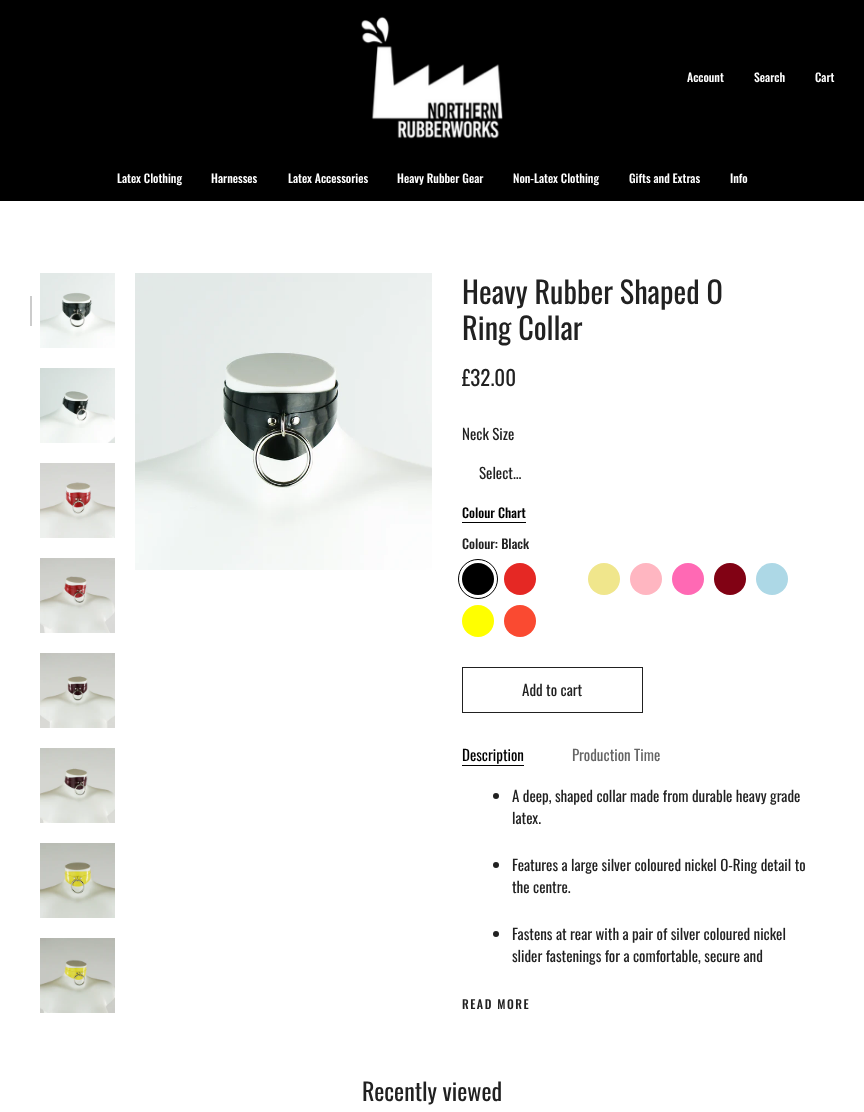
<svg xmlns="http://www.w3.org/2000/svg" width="864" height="1112">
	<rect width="100%" height="100%" fill="#FFFFFF" />
	<rect x="0" y="0" width="864" height="201" fill="#000000" />
	<image x="361" y="16" width="142" height="123" href="assets/img1.png" />
	<g font-family="Oswald" font-size="11.75" font-weight="500" fill="#FFFFFF">
		<text x="687" y="82">Account</text>
		<text x="754" y="82">Search</text>
		<text x="815" y="82">Cart</text>
		<text x="117" y="183">Latex Clothing</text>
		<text x="211" y="183">Harnesses</text>
		<text x="288" y="183">Latex Accessories</text>
		<text x="397" y="183">Heavy Rubber Gear</text>
		<text x="513" y="183">Non-Latex Clothing</text>
		<text x="629" y="183">Gifts and Extras</text>
		<text x="730" y="183">Info</text>
	</g>
	<rect x="30" y="296" width="2" height="30" fill="#CCCCCC" />
	<image x="40" y="273" width="75" height="75" href="assets/img2.png" />
	<image x="40" y="368" width="75" height="75" href="assets/img3.png" />
	<image x="40" y="463" width="75" height="75" href="assets/img4.png" />
	<image x="40" y="558" width="75" height="75" href="assets/img5.png" />
	<image x="40" y="653" width="75" height="75" href="assets/img6.png" />
	<image x="40" y="748" width="75" height="75" href="assets/img7.png" />
	<image x="40" y="843" width="75" height="75" href="assets/img8.png" />
	<image x="40" y="938" width="75" height="75" href="assets/img9.png" />
	<image x="135" y="273" width="297" height="297" href="assets/img10.png" />
	<g font-family="Oswald" font-size="30.25" fill="#212121">
		<text x="462" y="304">Heavy Rubber Shaped O</text>
		<text x="462" y="340">Ring Collar</text>
	</g>
	<text x="462" y="386" font-family="Oswald" font-size="21" fill="#212121">£32.00</text>
	<g font-family="Oswald" font-size="15" fill="#212121">
		<text x="462" y="440">Neck Size</text>
		<text x="479" y="479">Select...</text>
	</g>
	<rect x="462" y="522" width="64" height="1" fill="#000000" />
	<text x="462" y="518" font-family="Oswald" font-size="13" font-weight="500" fill="#000000">Colour Chart</text>
	<text x="462" y="549" font-family="Oswald" font-size="13" font-weight="500" fill="#212121">Colour: Black</text>
	<circle cx="478" cy="579" r="16" fill="#000000" />
	<circle cx="478" cy="579" r="19.5" fill="none" stroke="#000000" />
	<circle cx="520" cy="579" r="16" fill="#E52824" />
	<circle cx="604" cy="579" r="16" fill="#F0E68C" />
	<circle cx="646" cy="579" r="16" fill="#FFB6C1" />
	<circle cx="688" cy="579" r="16" fill="#FF69B4" />
	<circle cx="730" cy="579" r="16" fill="#810214" />
	<circle cx="772" cy="579" r="16" fill="#ADD8E6" />
	<circle cx="478" cy="621" r="16" fill="#FFFF00" />
	<circle cx="520" cy="621" r="16" fill="#FA4A31" />
	<rect x="462.5" y="667.5" width="180" height="45" fill="none" stroke="#212121" />
	<text x="522" y="696" font-family="Oswald" font-size="15" fill="#212121">Add to cart</text>
	<rect x="462" y="765" width="62" height="1" fill="#000000" />
	<text x="462" y="761" font-family="Oswald" font-size="15" fill="#000000">Description</text>
	<text x="572" y="761" font-family="Oswald" font-size="15" fill="#646464">Production Time</text>
	<circle cx="496" cy="796" r="3" fill="#212121" />
	<g font-family="Oswald" font-size="15" fill="#212121">
		<text x="512" y="802">A deep, shaped collar made from durable heavy grade</text>
		<text x="512" y="824">latex.</text>
	</g>
	<circle cx="496" cy="865" r="3" fill="#212121" />
	<g font-family="Oswald" font-size="15" fill="#212121">
		<text x="512" y="871">Features a large silver coloured nickel O-Ring detail to</text>
		<text x="512" y="893">the centre.</text>
	</g>
	<circle cx="496" cy="934" r="3" fill="#212121" />
	<g font-family="Oswald" font-size="15" fill="#212121">
		<text x="512" y="940">Fastens at rear with a pair of silver coloured nickel</text>
		<text x="512" y="962">slider fastenings for a comfortable, secure and</text>
	</g>
	<text x="462" y="1009" font-family="Oswald" font-size="12" font-weight="500" letter-spacing="1.5" fill="#212121">READ MORE</text>
	<text x="362" y="1101" font-family="Oswald" font-size="24" fill="#212121">Recently viewed</text>
</svg>
